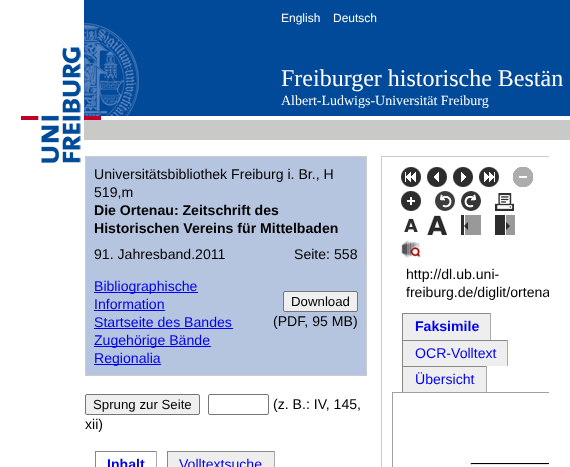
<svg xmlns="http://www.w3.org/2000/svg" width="570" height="467">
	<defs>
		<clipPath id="clip1"><rect x="392" y="167" width="157" height="136" /></clipPath>
		<clipPath id="clip2"><rect x="85" y="156" width="464" height="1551" /></clipPath>
	</defs>
	<rect width="100%" height="100%" fill="#FFFFFF" />
	<image x="84" y="0" width="486" height="140" href="assets/img1.png" />
	<image x="21" y="47" width="60" height="116" href="assets/img2.png" />
	<image x="84" y="23" width="55" height="97" href="assets/img3.png" />
	<g font-family="Liberation Sans" font-size="12" fill="#FFFFFF">
		<text x="281" y="22">English</text>
		<text x="333" y="22">Deutsch</text>
	</g>
	<text x="281" y="86" font-family="Liberation Serif" font-size="24" fill="#FFFFFF">Freiburger historische Bestän</text>
	<text x="281" y="105" font-family="Liberation Serif" font-size="14" fill="#FFFFFF">Albert-Ludwigs-Universität Freiburg</text>
	<rect x="85.5" y="156.5" width="281" height="219" fill="#B6C5DF" stroke="#CCCCCC" />
	<g font-family="Liberation Sans" font-size="14.1" fill="#000000">
		<text x="94" y="179">Universitätsbibliothek Freiburg i. Br., H</text>
		<text x="94" y="197">519,m</text>
	</g>
	<g font-family="Liberation Sans" font-size="14.1" font-weight="700" fill="#000000">
		<text x="94" y="215">Die Ortenau: Zeitschrift des</text>
		<text x="94" y="233">Historischen Vereins für Mittelbaden</text>
	</g>
	<g font-family="Liberation Sans" font-size="14.1" fill="#000000">
		<text x="94" y="259">91. Jahresband.2011</text>
		<text x="294" y="259">Seite: 558</text>
	</g>
	<rect x="94" y="292" width="104" height="1" fill="#0000EE" />
	<g font-family="Liberation Sans" font-size="14.1" fill="#0000EE">
		<text x="94" y="291">Bibliographische</text>
		<text x="94" y="309">Information</text>
	</g>
	<rect x="94" y="310" width="71" height="1" fill="#0000EE" />
	<rect x="283.5" y="291.5" width="74" height="20" rx="1.5" fill="#EFEFEF" stroke="#767676" />
	<text x="291" y="306" font-family="Liberation Sans" font-size="13.25" fill="#000000">Download</text>
	<text x="273" y="326" font-family="Liberation Sans" font-size="14.1" fill="#000000">(PDF, 95 MB)</text>
	<text x="94" y="327" font-family="Liberation Sans" font-size="14.1" fill="#0000EE">Startseite des Bandes</text>
	<rect x="94" y="328" width="139" height="1" fill="#0000EE" />
	<rect x="94" y="346" width="117" height="1" fill="#0000EE" />
	<text x="94" y="345" font-family="Liberation Sans" font-size="14.1" fill="#0000EE">Zugehörige Bände</text>
	<rect x="94" y="364" width="67" height="1" fill="#0000EE" />
	<text x="94" y="363" font-family="Liberation Sans" font-size="14.1" fill="#0000EE">Regionalia</text>
	<rect x="85.5" y="394.5" width="114" height="20" rx="1.5" fill="#EFEFEF" stroke="#767676" />
	<text x="93" y="409" font-family="Liberation Sans" font-size="13.25" fill="#000000">Sprung zur Seite</text>
	<rect x="208.5" y="394.5" width="60" height="20" rx="1.5" fill="none" stroke="#767676" />
	<g font-family="Liberation Sans" font-size="14.1" fill="#000000">
		<text x="273" y="409">(z. B.: IV, 145,</text>
		<text x="85" y="429">xii)</text>
	</g>
	<rect x="95" y="451" width="62" height="1" fill="#888888" />
	<rect x="156" y="451" width="1" height="16" fill="#AAAAAA" />
	<rect x="95" y="451" width="1" height="16" fill="#888888" />
	<text x="107" y="469" font-family="Liberation Sans" font-size="14.1" font-weight="700" fill="#0000EE">Inhalt</text>
	<rect x="168" y="452" width="106" height="15" fill="#EEEEEE" />
	<rect x="167" y="451" width="108" height="1" fill="#888888" />
	<rect x="274" y="451" width="1" height="16" fill="#AAAAAA" />
	<rect x="167" y="451" width="1" height="16" fill="#888888" />
	<text x="179" y="469" font-family="Liberation Sans" font-size="14.1" fill="#0000EE">Volltextsuche</text>
	<rect x="381" y="156" width="168" height="1" fill="#CCCCCC" />
	<rect x="381" y="156" width="1" height="311" fill="#CCCCCC" />
	<image x="401" y="167" width="20" height="20" href="assets/img4.png" />
	<image x="427" y="167" width="20" height="20" href="assets/img5.png" />
	<image x="453" y="167" width="20" height="20" href="assets/img6.png" />
	<image x="479" y="167" width="20" height="20" href="assets/img7.png" />
	<image x="513" y="167" width="20" height="20" href="assets/img8.png" />
	<image x="401" y="191" width="20" height="20" href="assets/img9.png" />
	<image x="435" y="191" width="20" height="20" href="assets/img10.png" />
	<image x="461" y="191" width="20" height="20" href="assets/img11.png" />
	<image x="495" y="193" width="19" height="18" href="assets/img12.png" />
	<image x="404" y="218" width="14" height="14" href="assets/img13.png" />
	<image x="427" y="215" width="20" height="20" href="assets/img14.png" />
	<image x="461" y="215" width="20" height="20" href="assets/img15.png" />
	<image x="495" y="215" width="20" height="20" href="assets/img16.png" />
	<image x="401" y="240" width="20" height="18" href="assets/img17.png" />
	<text x="406" y="279" font-family="Liberation Sans" font-size="14.1" fill="#000000">http://dl.ub.uni-</text>
	<g clip-path="url(#clip1)">
		<text x="406" y="297" font-family="Liberation Sans" font-size="14.1" fill="#000000">freiburg.de/diglit/ortena</text>
	</g>
	<rect x="403" y="314" width="87" height="26" fill="#EEEEEE" />
	<rect x="402" y="313" width="89" height="1" fill="#888888" />
	<rect x="490" y="313" width="1" height="27" fill="#AAAAAA" />
	<rect x="402" y="313" width="1" height="27" fill="#888888" />
	<text x="415" y="331" font-family="Liberation Sans" font-size="14.1" font-weight="700" fill="#0000EE">Faksimile</text>
	<rect x="403" y="341" width="104" height="25" fill="#EEEEEE" />
	<rect x="402" y="340" width="106" height="1" fill="#888888" />
	<rect x="507" y="340" width="1" height="26" fill="#AAAAAA" />
	<rect x="402" y="340" width="1" height="26" fill="#888888" />
	<text x="415" y="358" font-family="Liberation Sans" font-size="14.1" fill="#0000EE">OCR-Volltext</text>
	<rect x="403" y="367" width="83" height="25" fill="#EEEEEE" />
	<rect x="402" y="366" width="85" height="1" fill="#888888" />
	<rect x="486" y="366" width="1" height="26" fill="#AAAAAA" />
	<rect x="402" y="366" width="1" height="26" fill="#888888" />
	<text x="415" y="384" font-family="Liberation Sans" font-size="14.1" fill="#0000EE">Übersicht</text>
	<g clip-path="url(#clip2)">
		<rect x="392.5" y="392.5" width="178" height="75" fill="none" stroke="#A0A0A0" />
	</g>
	<image x="465" y="457" width="84" height="8" href="assets/img18.png" />
</svg>
